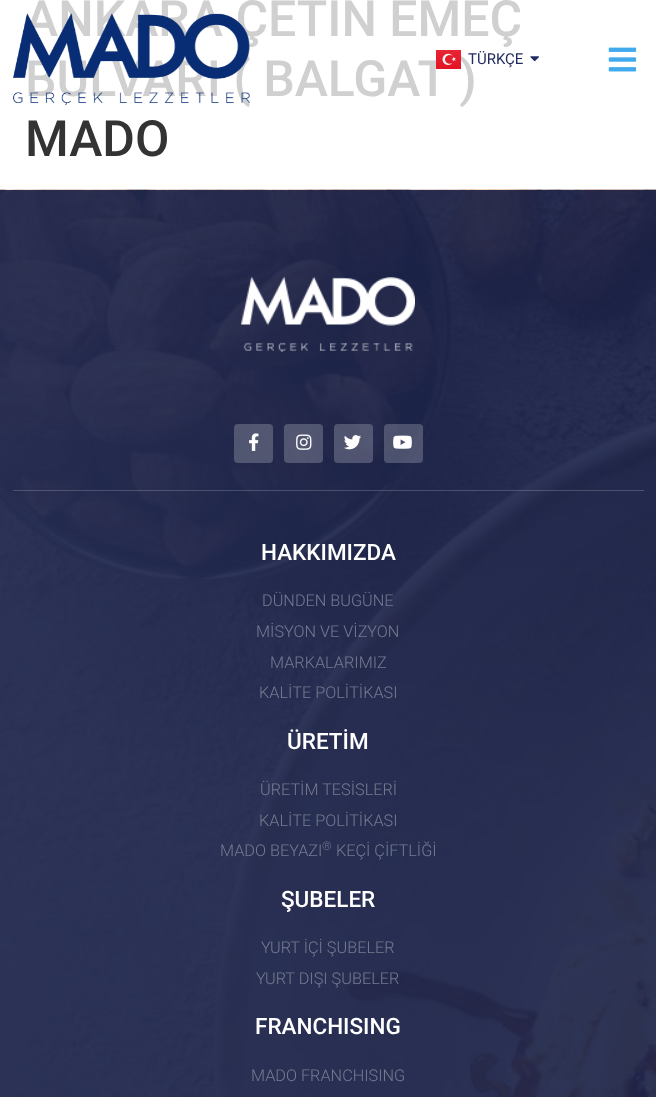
<svg xmlns="http://www.w3.org/2000/svg" width="656" height="1097">
	<rect width="100%" height="100%" fill="#FFFFFF" />
	<g font-family="Roboto" font-size="50" font-weight="500" fill="#D0D0D0">
		<text x="25" y="36">ANKARA ÇETİN EMEÇ</text>
		<text x="25" y="96">BULVARI ( BALGAT )</text>
	</g>
	<text x="25" y="156" font-family="Roboto" font-size="50" font-weight="500" fill="#333333">MADO</text>
	<image x="13" y="13" width="237" height="92" href="assets/img1.png" />
	<image x="436" y="50" width="25" height="19" href="assets/img2.png" />
	<text x="468" y="64" font-family="Roboto" font-size="15" fill="#202C60">TÜRKÇE</text>
	<image x="530" y="56" width="9" height="6" href="assets/img3.png" />
	<image x="608" y="47" width="29" height="25" href="assets/img4.png" />
	<image x="0" y="189" width="656" height="908" href="assets/img5.png" />
	<rect x="13" y="490" width="631" height="1" fill="#FFFFFF" fill-opacity="0.19" />
	<image x="241" y="277" width="174" height="75" href="assets/img6.png" />
	<rect x="234" y="424" width="39" height="39" rx="4" fill="#FFFFFF" fill-opacity="0.21" />
	<image x="249" y="433" width="10" height="18" href="assets/img7.png" />
	<rect x="284" y="424" width="39" height="39" rx="4" fill="#FFFFFF" fill-opacity="0.21" />
	<image x="296" y="434" width="16" height="16" href="assets/img8.png" />
	<rect x="334" y="424" width="39" height="39" rx="4" fill="#FFFFFF" fill-opacity="0.21" />
	<image x="344" y="435" width="18" height="15" href="assets/img9.png" />
	<rect x="384" y="424" width="39" height="39" rx="4" fill="#FFFFFF" fill-opacity="0.21" />
	<image x="393" y="435" width="19" height="14" href="assets/img10.png" />
	<text x="261" y="560" font-family="Roboto" font-size="22.5" font-weight="500" fill="#FFFFFF">HAKKIMIZDA</text>
	<g font-family="Roboto" font-size="16.25" font-weight="300" fill="#767B91">
		<text x="262" y="606">DÜNDEN BUGÜNE</text>
		<text x="256" y="637">MİSYON VE VİZYON</text>
		<text x="270" y="668">MARKALARIMIZ</text>
		<text x="259" y="698">KALİTE POLİTİKASI</text>
	</g>
	<text x="287" y="749" font-family="Roboto" font-size="22.5" font-weight="500" fill="#FFFFFF">ÜRETİM</text>
	<g font-family="Roboto" font-size="16.25" font-weight="300" fill="#767B91">
		<text x="260" y="795">ÜRETİM TESİSLERİ</text>
		<text x="259" y="826">KALİTE POLİTİKASI</text>
		<text x="220" y="856">MADO BEYAZI</text>
	</g>
	<text x="322" y="850" font-family="Roboto" font-size="12" font-weight="300" fill="#767B91">®</text>
	<text x="336" y="856" font-family="Roboto" font-size="16.25" font-weight="300" fill="#767B91">KEÇİ ÇİFTLİĞİ</text>
	<text x="281" y="907" font-family="Roboto" font-size="22.5" font-weight="500" fill="#FFFFFF">ŞUBELER</text>
	<g font-family="Roboto" font-size="16.25" font-weight="300" fill="#767B91">
		<text x="261" y="953">YURT İÇİ ŞUBELER</text>
		<text x="256" y="984">YURT DIŞI ŞUBELER</text>
	</g>
	<text x="255" y="1034" font-family="Roboto" font-size="22.5" font-weight="500" fill="#FFFFFF">FRANCHISING</text>
	<text x="251" y="1081" font-family="Roboto" font-size="16.25" font-weight="300" fill="#767B91">MADO FRANCHISING</text>
</svg>
